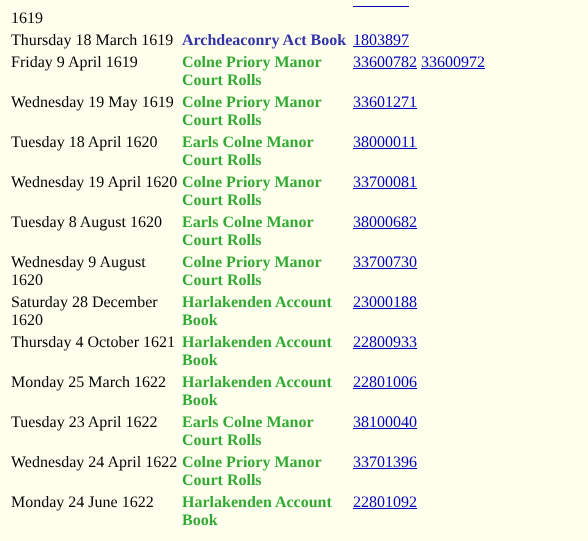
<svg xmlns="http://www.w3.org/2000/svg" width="588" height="541">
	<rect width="100%" height="100%" fill="#FFFFEE" />
	<rect x="353" y="6" width="56" height="1" fill="#0000BB" />
	<g font-family="Liberation Serif" font-size="16" fill="#000000">
		<text x="11" y="23">1619</text>
		<text x="11" y="45">Thursday 18 March 1619</text>
	</g>
	<text x="182" y="45" font-family="Liberation Serif" font-size="16" font-weight="700" fill="#3333AA">Archdeaconry Act Book</text>
	<text x="353" y="45" font-family="Liberation Serif" font-size="16" fill="#0000BB">1803897</text>
	<rect x="353" y="46" width="56" height="1" fill="#0000BB" />
	<text x="11" y="67" font-family="Liberation Serif" font-size="16" fill="#000000">Friday 9 April 1619</text>
	<g font-family="Liberation Serif" font-size="16" font-weight="700" fill="#33AA33">
		<text x="182" y="67">Colne Priory Manor</text>
		<text x="182" y="85">Court Rolls</text>
	</g>
	<text x="353" y="67" font-family="Liberation Serif" font-size="16" fill="#0000BB">33600782 33600972</text>
	<rect x="353" y="68" width="64" height="1" fill="#0000BB" />
	<rect x="421" y="68" width="64" height="1" fill="#0000BB" />
	<text x="11" y="107" font-family="Liberation Serif" font-size="16" fill="#000000">Wednesday 19 May 1619</text>
	<g font-family="Liberation Serif" font-size="16" font-weight="700" fill="#33AA33">
		<text x="182" y="107">Colne Priory Manor</text>
		<text x="182" y="125">Court Rolls</text>
	</g>
	<text x="353" y="107" font-family="Liberation Serif" font-size="16" fill="#0000BB">33601271</text>
	<rect x="353" y="108" width="64" height="1" fill="#0000BB" />
	<text x="11" y="147" font-family="Liberation Serif" font-size="16" fill="#000000">Tuesday 18 April 1620</text>
	<g font-family="Liberation Serif" font-size="16" font-weight="700" fill="#33AA33">
		<text x="182" y="147">Earls Colne Manor</text>
		<text x="182" y="165">Court Rolls</text>
	</g>
	<text x="353" y="147" font-family="Liberation Serif" font-size="16" fill="#0000BB">38000011</text>
	<rect x="353" y="148" width="64" height="1" fill="#0000BB" />
	<text x="11" y="187" font-family="Liberation Serif" font-size="16" fill="#000000">Wednesday 19 April 1620</text>
	<g font-family="Liberation Serif" font-size="16" font-weight="700" fill="#33AA33">
		<text x="182" y="187">Colne Priory Manor</text>
		<text x="182" y="205">Court Rolls</text>
	</g>
	<text x="353" y="187" font-family="Liberation Serif" font-size="16" fill="#0000BB">33700081</text>
	<rect x="353" y="188" width="64" height="1" fill="#0000BB" />
	<text x="11" y="227" font-family="Liberation Serif" font-size="16" fill="#000000">Tuesday 8 August 1620</text>
	<g font-family="Liberation Serif" font-size="16" font-weight="700" fill="#33AA33">
		<text x="182" y="227">Earls Colne Manor</text>
		<text x="182" y="245">Court Rolls</text>
	</g>
	<text x="353" y="227" font-family="Liberation Serif" font-size="16" fill="#0000BB">38000682</text>
	<rect x="353" y="228" width="64" height="1" fill="#0000BB" />
	<g font-family="Liberation Serif" font-size="16" fill="#000000">
		<text x="11" y="267">Wednesday 9 August</text>
		<text x="11" y="285">1620</text>
	</g>
	<g font-family="Liberation Serif" font-size="16" font-weight="700" fill="#33AA33">
		<text x="182" y="267">Colne Priory Manor</text>
		<text x="182" y="285">Court Rolls</text>
	</g>
	<text x="353" y="267" font-family="Liberation Serif" font-size="16" fill="#0000BB">33700730</text>
	<rect x="353" y="268" width="64" height="1" fill="#0000BB" />
	<g font-family="Liberation Serif" font-size="16" fill="#000000">
		<text x="11" y="307">Saturday 28 December</text>
		<text x="11" y="325">1620</text>
	</g>
	<g font-family="Liberation Serif" font-size="16" font-weight="700" fill="#33AA33">
		<text x="182" y="307">Harlakenden Account</text>
		<text x="182" y="325">Book</text>
	</g>
	<text x="353" y="307" font-family="Liberation Serif" font-size="16" fill="#0000BB">23000188</text>
	<rect x="353" y="308" width="64" height="1" fill="#0000BB" />
	<text x="11" y="347" font-family="Liberation Serif" font-size="16" fill="#000000">Thursday 4 October 1621</text>
	<g font-family="Liberation Serif" font-size="16" font-weight="700" fill="#33AA33">
		<text x="182" y="347">Harlakenden Account</text>
		<text x="182" y="365">Book</text>
	</g>
	<text x="353" y="347" font-family="Liberation Serif" font-size="16" fill="#0000BB">22800933</text>
	<rect x="353" y="348" width="64" height="1" fill="#0000BB" />
	<text x="11" y="387" font-family="Liberation Serif" font-size="16" fill="#000000">Monday 25 March 1622</text>
	<g font-family="Liberation Serif" font-size="16" font-weight="700" fill="#33AA33">
		<text x="182" y="387">Harlakenden Account</text>
		<text x="182" y="405">Book</text>
	</g>
	<text x="353" y="387" font-family="Liberation Serif" font-size="16" fill="#0000BB">22801006</text>
	<rect x="353" y="388" width="64" height="1" fill="#0000BB" />
	<text x="11" y="427" font-family="Liberation Serif" font-size="16" fill="#000000">Tuesday 23 April 1622</text>
	<g font-family="Liberation Serif" font-size="16" font-weight="700" fill="#33AA33">
		<text x="182" y="427">Earls Colne Manor</text>
		<text x="182" y="445">Court Rolls</text>
	</g>
	<text x="353" y="427" font-family="Liberation Serif" font-size="16" fill="#0000BB">38100040</text>
	<rect x="353" y="428" width="64" height="1" fill="#0000BB" />
	<text x="11" y="467" font-family="Liberation Serif" font-size="16" fill="#000000">Wednesday 24 April 1622</text>
	<g font-family="Liberation Serif" font-size="16" font-weight="700" fill="#33AA33">
		<text x="182" y="467">Colne Priory Manor</text>
		<text x="182" y="485">Court Rolls</text>
	</g>
	<text x="353" y="467" font-family="Liberation Serif" font-size="16" fill="#0000BB">33701396</text>
	<rect x="353" y="468" width="64" height="1" fill="#0000BB" />
	<text x="11" y="507" font-family="Liberation Serif" font-size="16" fill="#000000">Monday 24 June 1622</text>
	<g font-family="Liberation Serif" font-size="16" font-weight="700" fill="#33AA33">
		<text x="182" y="507">Harlakenden Account</text>
		<text x="182" y="525">Book</text>
	</g>
	<text x="353" y="507" font-family="Liberation Serif" font-size="16" fill="#0000BB">22801092</text>
	<rect x="353" y="508" width="64" height="1" fill="#0000BB" />
</svg>
